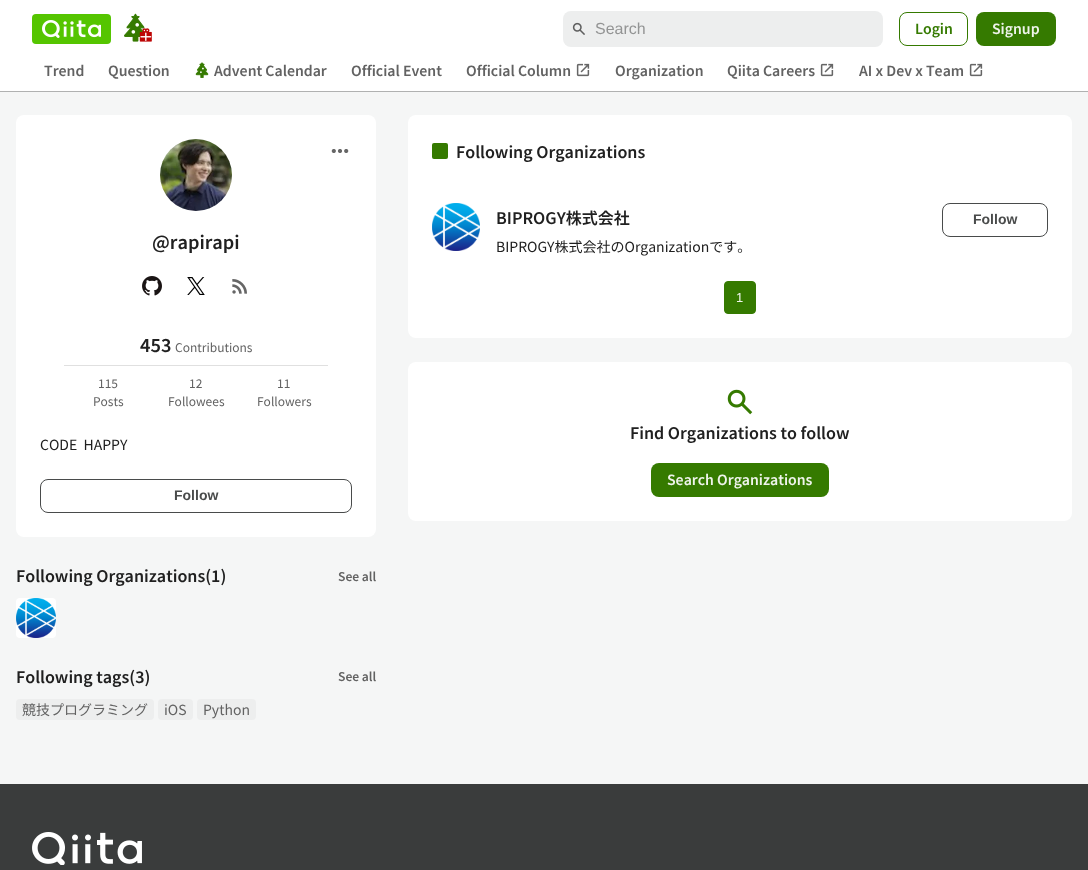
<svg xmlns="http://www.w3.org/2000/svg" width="1088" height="870">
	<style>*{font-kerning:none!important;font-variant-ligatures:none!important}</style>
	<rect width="100%" height="100%" fill="#F5F6F6" />
	<rect x="-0.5" y="-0.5" width="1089" height="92" fill="none" stroke="#E1E2E2" />
	<rect x="0" y="1" width="1088" height="91" fill="#1E2121" fill-opacity="0.25" filter="blur(0.5px)" />
	<rect x="0" y="0" width="1088" height="91" fill="#FFFFFF" />
	<rect x="32" y="14" width="79" height="30" rx="4" fill="#55C500" />
	<image x="42" y="20" width="59" height="18" href="assets/img1.png" />
	<image x="124" y="13" width="28" height="29" href="assets/img2.png" />
	<rect x="563" y="11" width="320" height="36" rx="8" fill="#EDEEEE" />
	<image x="572" y="22" width="13" height="13" href="assets/img3.png" />
	<text x="595" y="34" font-family="Liberation Sans" font-size="16" fill="#939494">Search</text>
	<rect x="899.5" y="12.5" width="68" height="33" rx="7.5" fill="none" stroke="#357A00" />
	<text x="915" y="34" font-family="Noto Sans JP" font-size="14" font-weight="600" fill="#357A00">Login</text>
	<rect x="976" y="12" width="80" height="34" rx="8" fill="#357A00" />
	<text x="992" y="34" font-family="Noto Sans JP" font-size="14" font-weight="600" fill="#EFF4EB">Signup</text>
	<g font-family="Noto Sans JP" font-size="14" font-weight="600" fill="#626262">
		<text x="44" y="76">Trend</text>
		<text x="108" y="76">Question</text>
	</g>
	<image x="195" y="62" width="14" height="16" href="assets/img4.png" />
	<g font-family="Noto Sans JP" font-size="14" font-weight="600" fill="#626262">
		<text x="214" y="76">Advent Calendar</text>
		<text x="351" y="76">Official Event</text>
		<text x="466" y="76">Official Column</text>
	</g>
	<image x="576" y="63" width="14" height="14" href="assets/img5.png" />
	<g font-family="Noto Sans JP" font-size="14" font-weight="600" fill="#626262">
		<text x="615" y="76">Organization</text>
		<text x="727" y="76">Qiita Careers</text>
	</g>
	<image x="820" y="63" width="14" height="14" href="assets/img5.png" />
	<text x="859" y="76" font-family="Noto Sans JP" font-size="14" font-weight="600" fill="#626262">AI x Dev x Team</text>
	<image x="969" y="63" width="14" height="14" href="assets/img5.png" />
	<rect x="16" y="115" width="360" height="422" rx="8" fill="#FFFFFF" />
	<image x="331" y="149" width="18" height="4" href="assets/img6.png" />
	<image x="160" y="139" width="72" height="72" href="assets/img7.png" />
	<text x="152" y="249" font-family="Noto Sans JP" font-size="18" font-weight="600" fill="#202020">@rapirapi</text>
	<image x="142" y="276" width="20" height="20" href="assets/img8.png" />
	<image x="187" y="277" width="18" height="18" href="assets/img9.png" />
	<image x="232" y="279" width="15" height="15" href="assets/img10.png" />
	<text x="140" y="352" font-family="Noto Sans JP" font-size="18" font-weight="600" fill="#202020">453</text>
	<text x="175" y="352" font-family="Noto Sans JP" font-size="12" fill="#626262">Contributions</text>
	<rect x="64" y="365" width="264" height="1" fill="#E0E0E0" />
	<g font-family="Noto Sans JP" font-size="12" fill="#626262">
		<text x="98" y="388">115</text>
		<text x="93" y="406">Posts</text>
		<text x="189" y="388">12</text>
		<text x="168" y="406">Followees</text>
		<text x="277" y="388">11</text>
		<text x="257" y="406">Followers</text>
	</g>
	<text x="40" y="450" font-family="Noto Sans JP" font-size="14" fill="#202020" xml:space="preserve">CODE  HAPPY</text>
	<rect x="40.5" y="479.5" width="311" height="33" rx="7.5" fill="none" stroke="#494B4B" />
	<text x="174" y="500" font-family="Liberation Sans" font-size="14" font-weight="700" fill="#494B4B">Follow</text>
	<text x="16" y="582" font-family="Noto Sans JP" font-size="16" font-weight="600" fill="#202020">Following Organizations(1)</text>
	<text x="338" y="581" font-family="Noto Sans JP" font-size="12" font-weight="600" fill="#626262">See all</text>
	<rect x="16" y="598" width="40" height="40" rx="4" fill="#FFFFFF" />
	<image x="16" y="598" width="40" height="40" href="assets/img11.png" />
	<text x="16" y="683" font-family="Noto Sans JP" font-size="16" font-weight="600" fill="#202020">Following tags(3)</text>
	<text x="338" y="681" font-family="Noto Sans JP" font-size="12" font-weight="600" fill="#626262">See all</text>
	<rect x="16" y="699" width="138" height="21" rx="4" fill="#EDEEEE" />
	<text x="22" y="715" font-family="Noto Sans JP" font-size="14" fill="#626262">競技プログラミング</text>
	<rect x="158" y="699" width="35" height="21" rx="4" fill="#EDEEEE" />
	<text x="164" y="715" font-family="Noto Sans JP" font-size="14" fill="#626262">iOS</text>
	<rect x="197" y="699" width="59" height="21" rx="4" fill="#EDEEEE" />
	<text x="203" y="715" font-family="Noto Sans JP" font-size="14" fill="#626262">Python</text>
	<rect x="408" y="115" width="664" height="223" rx="8" fill="#FFFFFF" />
	<rect x="432" y="143" width="16" height="16" rx="2" fill="#357A00" />
	<text x="456" y="158" font-family="Noto Sans JP" font-size="16" font-weight="600" fill="#202020">Following Organizations</text>
	<image x="432" y="203" width="48" height="48" href="assets/img12.png" />
	<text x="496" y="224" font-family="Noto Sans JP" font-size="16" font-weight="600" fill="#202020">BIPROGY株式会社</text>
	<text x="496" y="252" font-family="Noto Sans JP" font-size="14" fill="#202020">BIPROGY株式会社のOrganizationです。</text>
	<rect x="942.5" y="203.5" width="105" height="33" rx="7.5" fill="none" stroke="#494B4B" />
	<text x="973" y="224" font-family="Liberation Sans" font-size="14" font-weight="700" fill="#494B4B">Follow</text>
	<rect x="724.5" y="281.5" width="31" height="32" rx="3.5" fill="#357A00" stroke="#357A00" />
	<text x="736" y="302" font-family="Liberation Sans" font-size="13" fill="#EFF4EB">1</text>
	<rect x="408" y="362" width="664" height="159" rx="8" fill="#FFFFFF" />
	<image x="727" y="389" width="26" height="26" href="assets/img13.png" />
	<text x="630" y="439" font-family="Noto Sans JP" font-size="16" font-weight="600" fill="#202020">Find Organizations to follow</text>
	<rect x="651" y="463" width="178" height="34" rx="8" fill="#357A00" />
	<text x="667" y="485" font-family="Noto Sans JP" font-size="14" font-weight="600" fill="#EFF4EB">Search Organizations</text>
	<rect x="0" y="784" width="1088" height="86" fill="#3A3C3C" />
	<image x="32" y="832" width="110" height="33" href="assets/img14.png" />
</svg>
